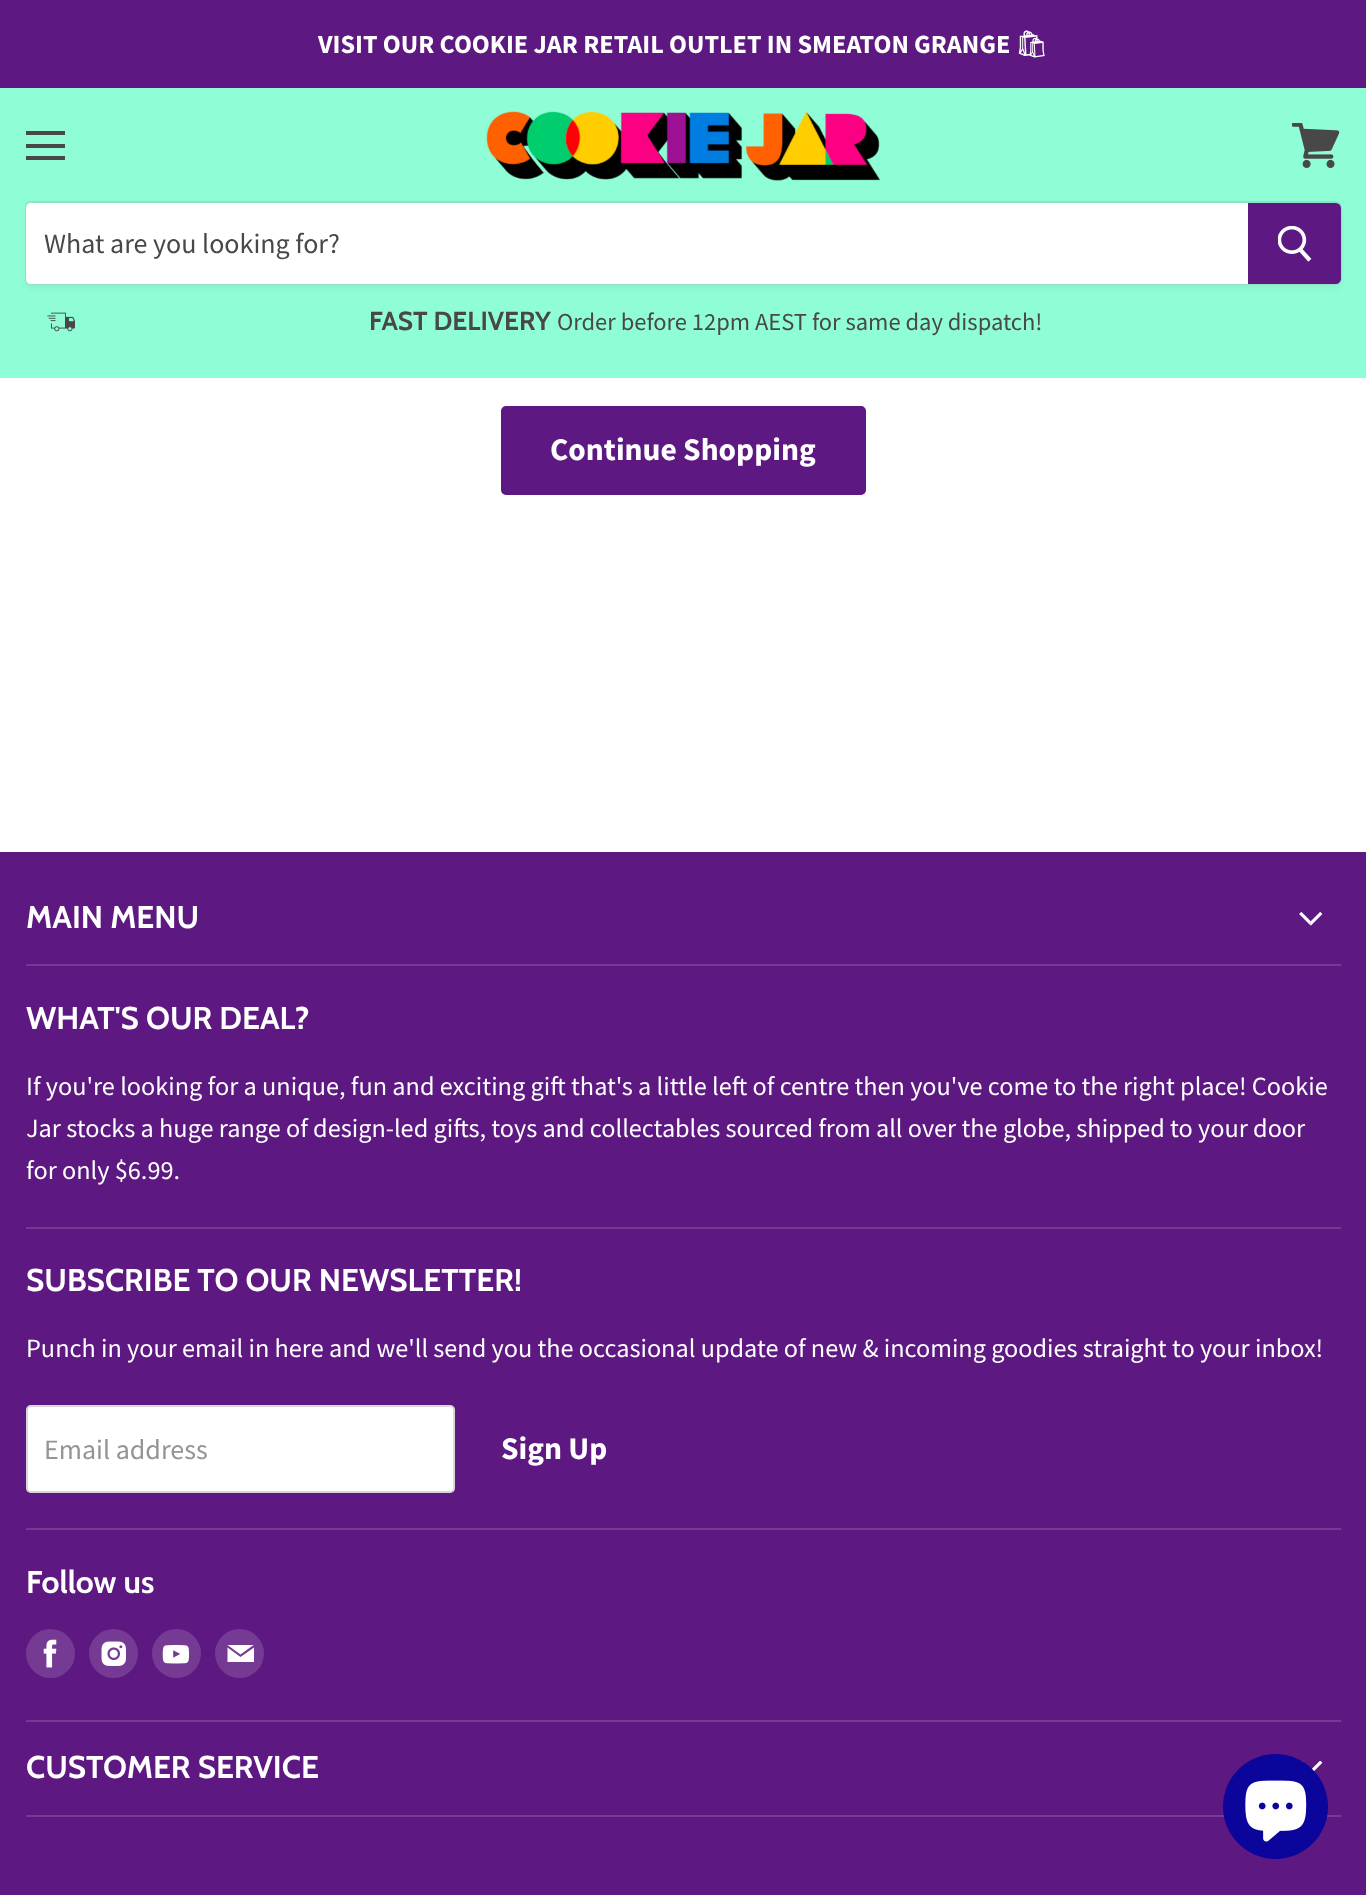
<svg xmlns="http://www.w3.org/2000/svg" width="1366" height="1895">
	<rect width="100%" height="100%" fill="#FFFFFF" />
	<rect x="0" y="88" width="1366" height="290" fill="#8FFED6" />
	<rect x="0" y="0" width="1366" height="88" fill="#5D1881" />
	<text x="318" y="53" font-family="Source Sans Pro" font-size="26.25" font-weight="700" fill="#FFFFFF">VISIT OUR COOKIE JAR RETAIL OUTLET IN SMEATON GRANGE</text>
	<text x="1015" y="53" font-family="Noto Emoji" font-size="26.25" font-weight="700" fill="#FFFFFF">🛍</text>
	<rect x="26" y="131" width="39" height="4" fill="#484848" />
	<rect x="26" y="144" width="39" height="4" fill="#484848" />
	<rect x="26" y="156" width="39" height="4" fill="#484848" />
	<image x="1292" y="123" width="48" height="45" href="assets/img1.png" />
	<image x="486" y="111" width="395" height="70" href="assets/img2.png" />
	<rect x="25" y="205" width="1317" height="84" rx="7" fill="#7F7F7F" fill-opacity="0.11" filter="blur(2.5px)" />
	<path d="M30 202H1335C1338.5 202 1341 204.5 1341 208V278C1341 281.5 1338.5 284 1335 284H30C28 284 26 282 26 280V206C26 204 28 202 30 202Z" fill="none" stroke="#8CE5C5" stroke-width="2" />
	<path d="M31 203H1248V284H31C28 284 26 282 26 279V208C26 205 28 203 31 203Z" fill="#FFFFFF" />
	<text x="44" y="253" font-family="Source Sans Pro" font-size="28" fill="#484848">What are you looking for?</text>
	<path d="M1249 204H1336C1338 204 1340 206 1340 208V279C1340 281 1338 283 1336 283H1249Z" fill="#5D1881" stroke="#5D1881" stroke-width="2" />
	<image x="1278" y="226" width="34" height="36" href="assets/img3.png" />
	<image x="47" y="312" width="28" height="20" href="assets/img4.png" />
	<text x="369" y="330" font-family="Cabin" font-size="26.25" font-weight="700" fill="#484848">FAST DELIVERY</text>
	<text x="557" y="330" font-family="Source Sans Pro" font-size="24.5" fill="#484848">Order before 12pm AEST for same day dispatch!</text>
	<rect x="502" y="407" width="363" height="87" rx="4" fill="#5D1881" stroke="#5D1881" stroke-width="2" />
	<text x="550" y="460" font-family="Source Sans Pro" font-size="31.5" font-weight="700" fill="#FFFFFF">Continue Shopping</text>
	<rect x="0" y="852" width="1366" height="1043" fill="#5D1881" />
	<rect x="26" y="964" width="1315" height="2" fill="#753B94" />
	<text x="26" y="928" font-family="Cabin" font-size="31.5" font-weight="700" fill="#FFFFFF">MAIN MENU</text>
	<image x="1299" y="912" width="24" height="14" href="assets/img5.png" />
	<rect x="26" y="1227" width="1315" height="2" fill="#753B94" />
	<text x="26" y="1029" font-family="Cabin" font-size="31.5" font-weight="700" fill="#FFFFFF">WHAT'S OUR DEAL?</text>
	<g font-family="Source Sans Pro" font-size="26.25" fill="#FFFFFF">
		<text x="26" y="1095">If you're looking for a unique, fun and exciting gift that's a little left of centre then you've come to the right place! Cookie</text>
		<text x="26" y="1137">Jar stocks a huge range of design-led gifts, toys and collectables sourced from all over the globe, shipped to your door</text>
		<text x="26" y="1179">for only $6.99.</text>
	</g>
	<rect x="26" y="1528" width="1315" height="2" fill="#753B94" />
	<text x="26" y="1291" font-family="Cabin" font-size="31.5" font-weight="700" fill="#FFFFFF">SUBSCRIBE TO OUR NEWSLETTER!</text>
	<text x="26" y="1357" font-family="Source Sans Pro" font-size="26.25" fill="#FFFFFF">Punch in your email in here and we'll send you the occasional update of new &amp; incoming goodies straight to your inbox!</text>
	<rect x="26" y="1405" width="429" height="88" rx="5" fill="#FFFFFF" />
	<rect x="27" y="1406" width="427" height="86" rx="4" fill="none" stroke="#7F7F7F" stroke-opacity="0.3" stroke-width="2" />
	<text x="44" y="1459" font-family="Source Sans Pro" font-size="28" fill="#949494">Email address</text>
	<text x="501" y="1459" font-family="Source Sans Pro" font-size="31.5" font-weight="700" fill="#FFFFFF">Sign Up</text>
	<rect x="26" y="1720" width="1315" height="2" fill="#753B94" />
	<text x="26" y="1593" font-family="Cabin" font-size="31.5" font-weight="700" fill="#FFFFFF">Follow us</text>
	<circle cx="50.5" cy="1653.5" r="24.5" fill="#753B94" />
	<image x="43" y="1639" width="14" height="29" href="assets/img6.png" />
	<circle cx="113.5" cy="1653.5" r="24.5" fill="#753B94" />
	<image x="101" y="1641" width="25" height="25" href="assets/img7.png" />
	<circle cx="176.5" cy="1653.5" r="24.5" fill="#753B94" />
	<image x="162" y="1645" width="28" height="19" href="assets/img8.png" />
	<circle cx="239.5" cy="1653.5" r="24.5" fill="#753B94" />
	<path d="M253.5 1645H227.5L240.5 1654.5ZM240.5 1657L227.5 1647.5V1662H254V1647.5Z" fill="#FFFFFF" fill-rule="evenodd" />
	<rect x="26" y="1815" width="1315" height="2" fill="#753B94" />
	<text x="26" y="1778" font-family="Cabin" font-size="31.5" font-weight="700" fill="#FFFFFF">CUSTOMER SERVICE</text>
	<image x="1301" y="1761" width="22" height="10" href="assets/img9.png" />
	<circle cx="1275.5" cy="1806.5" r="52.5" fill="#0B059C" />
	<image x="1245" y="1780" width="62" height="62" href="assets/img10.png" />
</svg>
